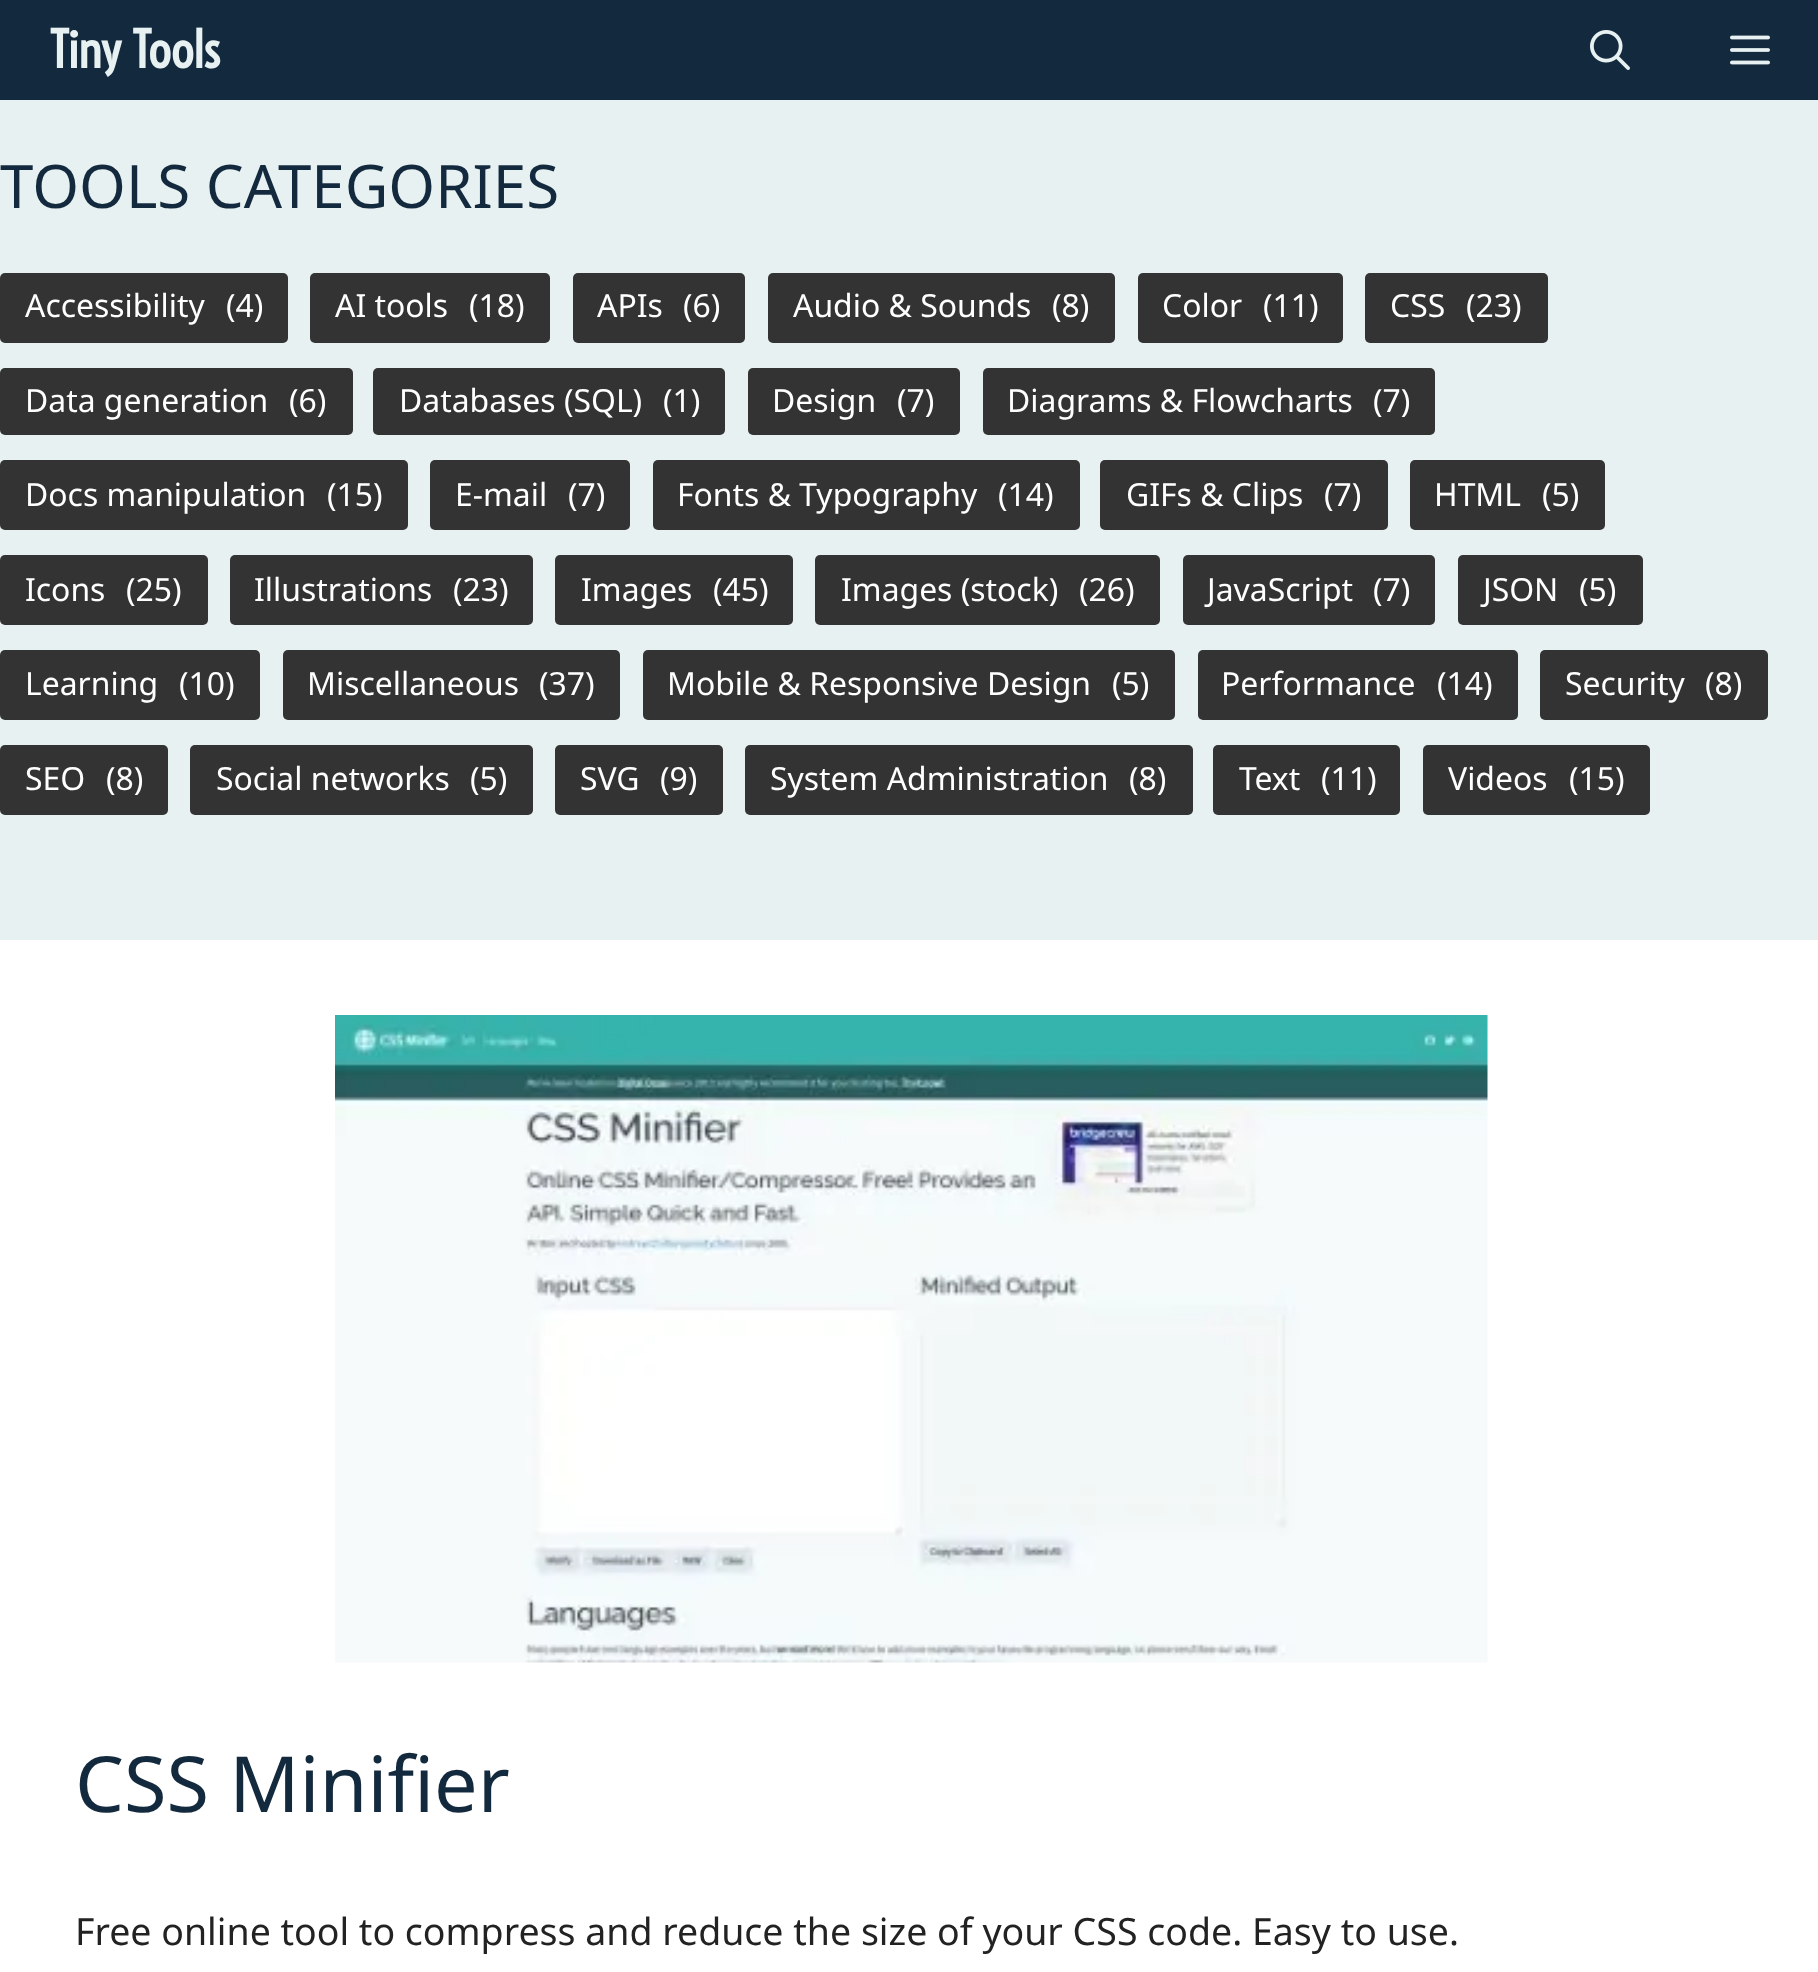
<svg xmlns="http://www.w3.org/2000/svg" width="1818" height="1972">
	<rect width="100%" height="100%" fill="#E8F1F2" />
	<rect x="0" y="0" width="1818" height="100" fill="#13293D" />
	<text x="50" y="68" font-family="Voltaire" font-size="50" font-weight="700" fill="#E8F1F2">Tiny Tools</text>
	<image x="1590" y="30" width="40" height="40" href="assets/img1.png" />
	<image x="1730" y="35" width="40" height="30" href="assets/img2.png" />
	<text x="0" y="208" font-family="Noto Sans" font-size="60" fill="#13293D">TOOLS CATEGORIES</text>
	<rect x="0" y="273" width="288" height="70" rx="5" fill="#333333" />
	<g font-family="Noto Sans" font-size="31.9" fill="#FFFFFF">
		<text x="25" y="317">Accessibility</text>
		<text x="226" y="317">(4)</text>
	</g>
	<rect x="310" y="273" width="240" height="70" rx="5" fill="#333333" />
	<g font-family="Noto Sans" font-size="31.9" fill="#FFFFFF">
		<text x="335" y="317">AI tools</text>
		<text x="469" y="317">(18)</text>
	</g>
	<rect x="573" y="273" width="172" height="70" rx="5" fill="#333333" />
	<g font-family="Noto Sans" font-size="31.9" fill="#FFFFFF">
		<text x="597" y="317">APIs</text>
		<text x="683" y="317">(6)</text>
	</g>
	<rect x="768" y="273" width="347" height="70" rx="5" fill="#333333" />
	<g font-family="Noto Sans" font-size="31.9" fill="#FFFFFF">
		<text x="793" y="317">Audio &amp; Sounds</text>
		<text x="1052" y="317">(8)</text>
	</g>
	<rect x="1138" y="273" width="205" height="70" rx="5" fill="#333333" />
	<g font-family="Noto Sans" font-size="31.9" fill="#FFFFFF">
		<text x="1162" y="317">Color</text>
		<text x="1263" y="317">(11)</text>
	</g>
	<rect x="1365" y="273" width="183" height="70" rx="5" fill="#333333" />
	<g font-family="Noto Sans" font-size="31.9" fill="#FFFFFF">
		<text x="1390" y="317">CSS</text>
		<text x="1466" y="317">(23)</text>
	</g>
	<rect x="0" y="368" width="353" height="67" rx="5" fill="#333333" />
	<g font-family="Noto Sans" font-size="31.9" fill="#FFFFFF">
		<text x="25" y="412">Data generation</text>
		<text x="289" y="412">(6)</text>
	</g>
	<rect x="373" y="368" width="352" height="67" rx="5" fill="#333333" />
	<g font-family="Noto Sans" font-size="31.9" fill="#FFFFFF">
		<text x="399" y="412">Databases (SQL)</text>
		<text x="663" y="412">(1)</text>
	</g>
	<rect x="748" y="368" width="212" height="67" rx="5" fill="#333333" />
	<g font-family="Noto Sans" font-size="31.9" fill="#FFFFFF">
		<text x="772" y="412">Design</text>
		<text x="897" y="412">(7)</text>
	</g>
	<rect x="983" y="368" width="452" height="67" rx="5" fill="#333333" />
	<g font-family="Noto Sans" font-size="31.9" fill="#FFFFFF">
		<text x="1007" y="412">Diagrams &amp; Flowcharts</text>
		<text x="1373" y="412">(7)</text>
	</g>
	<rect x="0" y="460" width="408" height="70" rx="5" fill="#333333" />
	<g font-family="Noto Sans" font-size="31.9" fill="#FFFFFF">
		<text x="25" y="506">Docs manipulation</text>
		<text x="327" y="506">(15)</text>
	</g>
	<rect x="430" y="460" width="200" height="70" rx="5" fill="#333333" />
	<g font-family="Noto Sans" font-size="31.9" fill="#FFFFFF">
		<text x="455" y="506">E-mail</text>
		<text x="568" y="506">(7)</text>
	</g>
	<rect x="653" y="460" width="427" height="70" rx="5" fill="#333333" />
	<g font-family="Noto Sans" font-size="31.9" fill="#FFFFFF">
		<text x="677" y="506">Fonts &amp; Typography</text>
		<text x="998" y="506">(14)</text>
	</g>
	<rect x="1100" y="460" width="288" height="70" rx="5" fill="#333333" />
	<g font-family="Noto Sans" font-size="31.9" fill="#FFFFFF">
		<text x="1126" y="506">GIFs &amp; Clips</text>
		<text x="1324" y="506">(7)</text>
	</g>
	<rect x="1410" y="460" width="195" height="70" rx="5" fill="#333333" />
	<g font-family="Noto Sans" font-size="31.9" fill="#FFFFFF">
		<text x="1434" y="506">HTML</text>
		<text x="1542" y="506">(5)</text>
	</g>
	<rect x="0" y="555" width="208" height="70" rx="5" fill="#333333" />
	<g font-family="Noto Sans" font-size="31.9" fill="#FFFFFF">
		<text x="25" y="601">Icons</text>
		<text x="126" y="601">(25)</text>
	</g>
	<rect x="230" y="555" width="303" height="70" rx="5" fill="#333333" />
	<g font-family="Noto Sans" font-size="31.9" fill="#FFFFFF">
		<text x="254" y="601">Illustrations</text>
		<text x="453" y="601">(23)</text>
	</g>
	<rect x="555" y="555" width="238" height="70" rx="5" fill="#333333" />
	<g font-family="Noto Sans" font-size="31.9" fill="#FFFFFF">
		<text x="581" y="601">Images</text>
		<text x="713" y="601">(45)</text>
	</g>
	<rect x="815" y="555" width="345" height="70" rx="5" fill="#333333" />
	<g font-family="Noto Sans" font-size="31.9" fill="#FFFFFF">
		<text x="841" y="601">Images (stock)</text>
		<text x="1079" y="601">(26)</text>
	</g>
	<rect x="1183" y="555" width="252" height="70" rx="5" fill="#333333" />
	<g font-family="Noto Sans" font-size="31.9" fill="#FFFFFF">
		<text x="1207" y="601">JavaScript</text>
		<text x="1373" y="601">(7)</text>
	</g>
	<rect x="1458" y="555" width="185" height="70" rx="5" fill="#333333" />
	<g font-family="Noto Sans" font-size="31.9" fill="#FFFFFF">
		<text x="1483" y="601">JSON</text>
		<text x="1579" y="601">(5)</text>
	</g>
	<rect x="0" y="650" width="260" height="70" rx="5" fill="#333333" />
	<g font-family="Noto Sans" font-size="31.9" fill="#FFFFFF">
		<text x="25" y="695">Learning</text>
		<text x="179" y="695">(10)</text>
	</g>
	<rect x="283" y="650" width="337" height="70" rx="5" fill="#333333" />
	<g font-family="Noto Sans" font-size="31.9" fill="#FFFFFF">
		<text x="307" y="695">Miscellaneous</text>
		<text x="539" y="695">(37)</text>
	</g>
	<rect x="643" y="650" width="532" height="70" rx="5" fill="#333333" />
	<g font-family="Noto Sans" font-size="31.9" fill="#FFFFFF">
		<text x="667" y="695">Mobile &amp; Responsive Design</text>
		<text x="1112" y="695">(5)</text>
	</g>
	<rect x="1198" y="650" width="320" height="70" rx="5" fill="#333333" />
	<g font-family="Noto Sans" font-size="31.9" fill="#FFFFFF">
		<text x="1221" y="695">Performance</text>
		<text x="1437" y="695">(14)</text>
	</g>
	<rect x="1540" y="650" width="228" height="70" rx="5" fill="#333333" />
	<g font-family="Noto Sans" font-size="31.9" fill="#FFFFFF">
		<text x="1565" y="695">Security</text>
		<text x="1705" y="695">(8)</text>
	</g>
	<rect x="0" y="745" width="168" height="70" rx="5" fill="#333333" />
	<g font-family="Noto Sans" font-size="31.9" fill="#FFFFFF">
		<text x="25" y="790">SEO</text>
		<text x="106" y="790">(8)</text>
	</g>
	<rect x="190" y="745" width="343" height="70" rx="5" fill="#333333" />
	<g font-family="Noto Sans" font-size="31.9" fill="#FFFFFF">
		<text x="216" y="790">Social networks</text>
		<text x="470" y="790">(5)</text>
	</g>
	<rect x="555" y="745" width="168" height="70" rx="5" fill="#333333" />
	<g font-family="Noto Sans" font-size="31.9" fill="#FFFFFF">
		<text x="580" y="790">SVG</text>
		<text x="660" y="790">(9)</text>
	</g>
	<rect x="745" y="745" width="448" height="70" rx="5" fill="#333333" />
	<g font-family="Noto Sans" font-size="31.9" fill="#FFFFFF">
		<text x="770" y="790">System Administration</text>
		<text x="1129" y="790">(8)</text>
	</g>
	<rect x="1213" y="745" width="187" height="70" rx="5" fill="#333333" />
	<g font-family="Noto Sans" font-size="31.9" fill="#FFFFFF">
		<text x="1239" y="790">Text</text>
		<text x="1321" y="790">(11)</text>
	</g>
	<rect x="1423" y="745" width="227" height="70" rx="5" fill="#333333" />
	<g font-family="Noto Sans" font-size="31.9" fill="#FFFFFF">
		<text x="1448" y="790">Videos</text>
		<text x="1569" y="790">(15)</text>
	</g>
	<rect x="0" y="940" width="1818" height="1032" fill="#FFFFFF" />
	<image x="335" y="1015" width="1153" height="648" href="assets/img3.png" />
	<text x="75" y="1812" font-family="Noto Sans" font-size="77.5" fill="#13293D">CSS Minifier</text>
	<text x="75" y="1945" font-family="Noto Sans" font-size="37.5" fill="#222222">Free online tool to compress and reduce the size of your CSS code. Easy to use.</text>
</svg>
